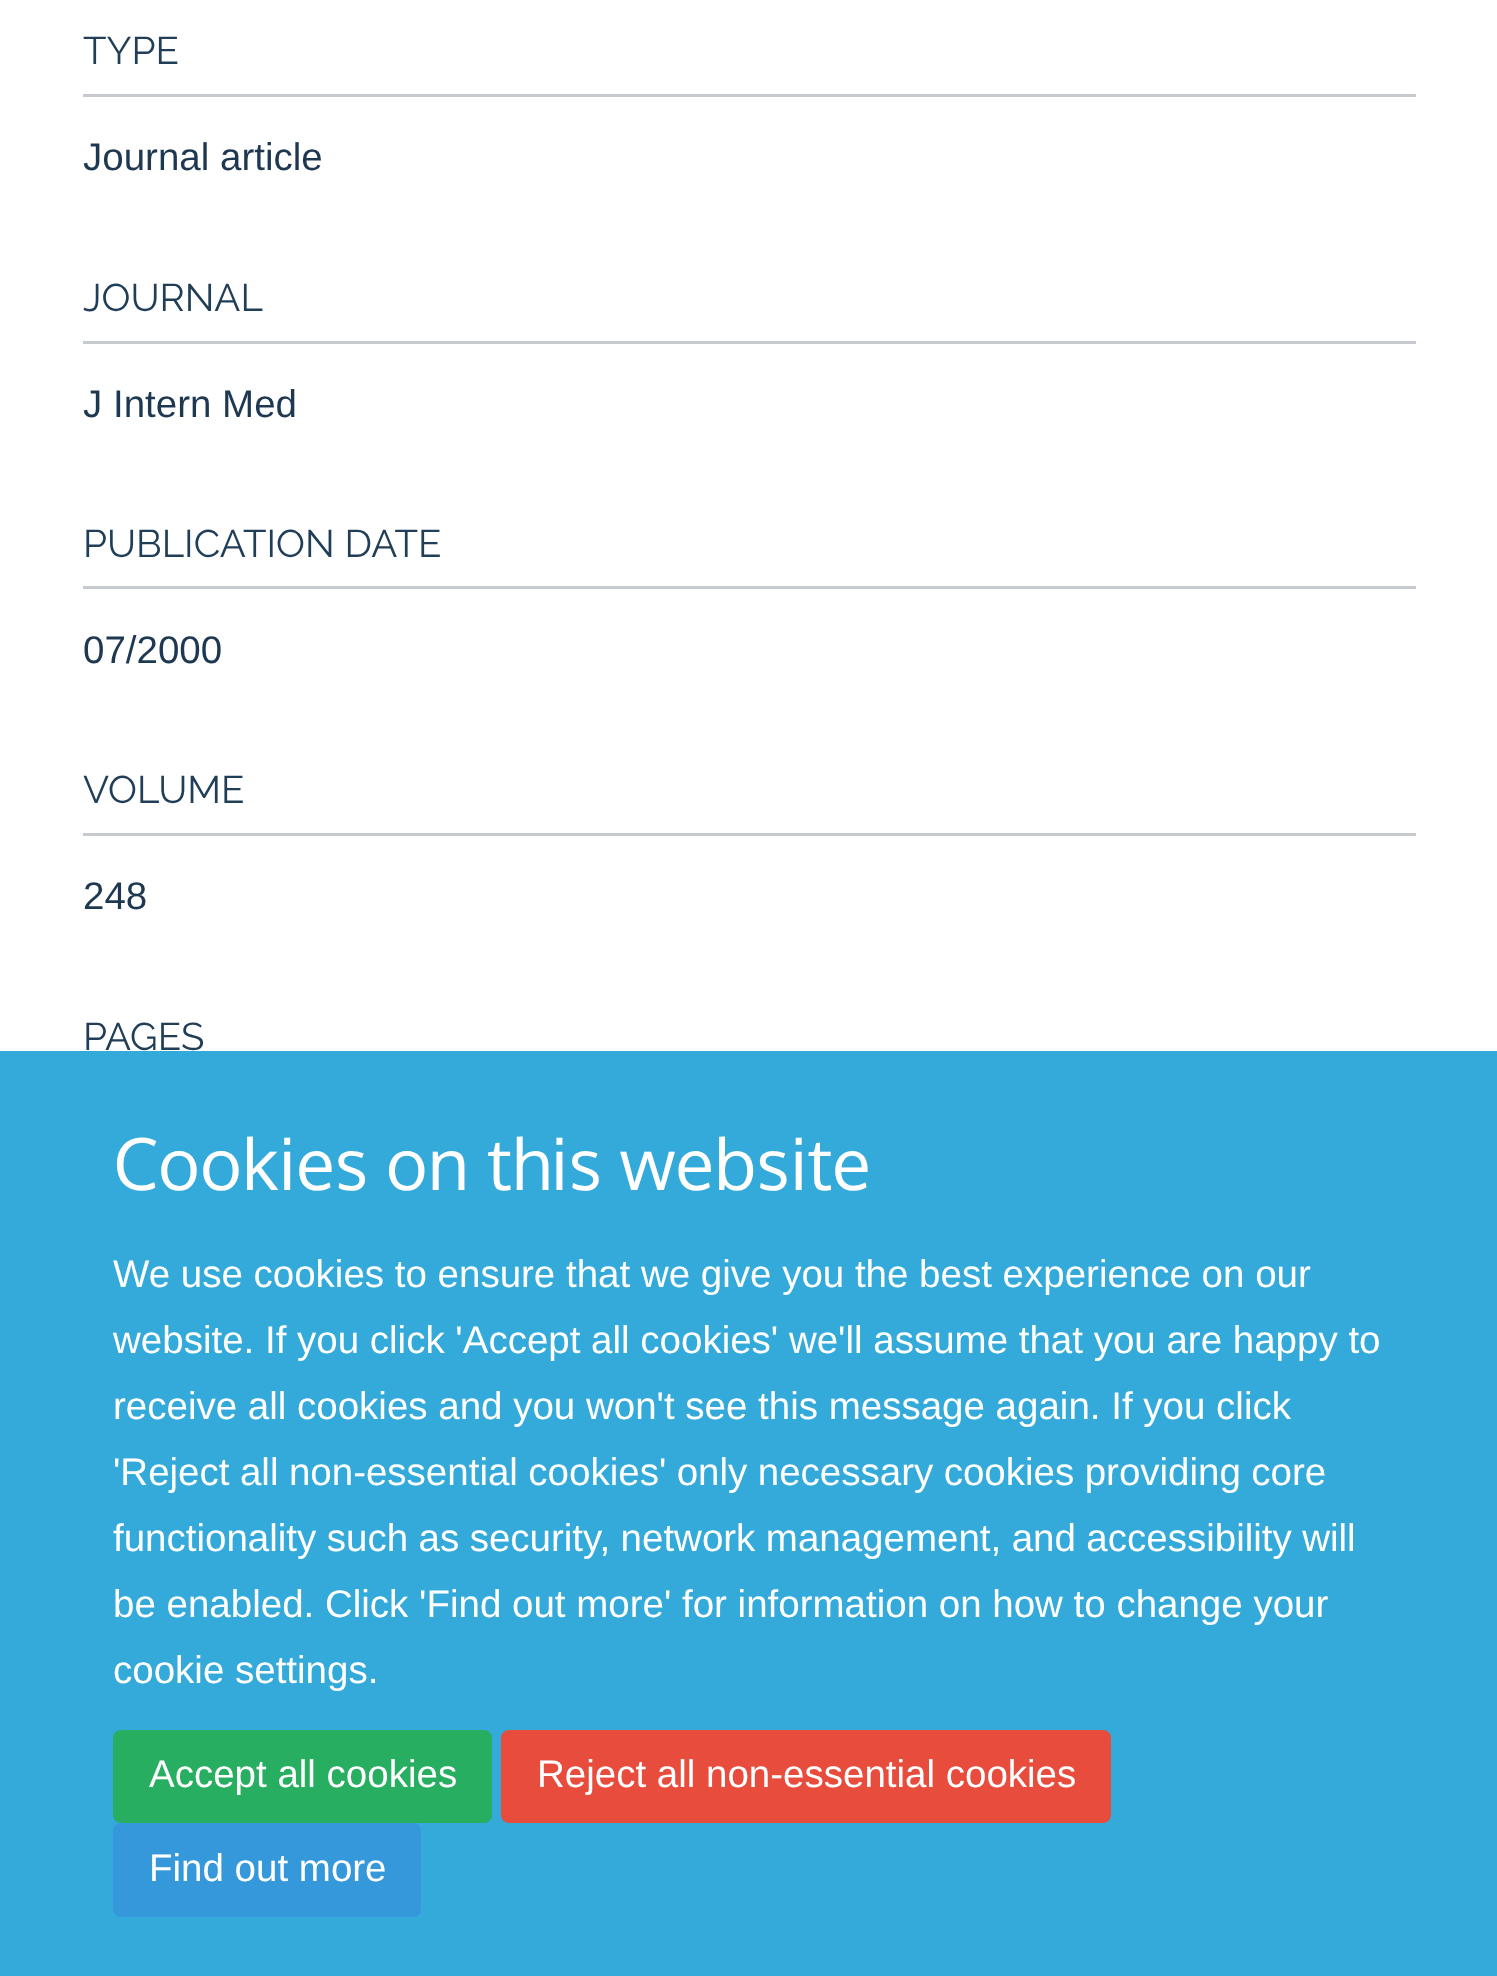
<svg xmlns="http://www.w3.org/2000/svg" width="1497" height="1976">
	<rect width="100%" height="100%" fill="#FFFFFF" />
	<rect x="83" y="94" width="1333" height="3" fill="#C6CACF" />
	<text x="83" y="64" font-family="Raleway" font-size="38.5" font-weight="100" fill="#203E58">TYPE</text>
	<text x="83" y="170" font-family="Liberation Sans" font-size="38.5" fill="#1D3850">Journal article</text>
	<rect x="83" y="341" width="1333" height="3" fill="#C6CACF" />
	<text x="83" y="311" font-family="Raleway" font-size="38.5" font-weight="100" fill="#203E58">JOURNAL</text>
	<text x="83" y="417" font-family="Liberation Sans" font-size="38.5" fill="#1D3850">J Intern Med</text>
	<rect x="83" y="586" width="1333" height="3" fill="#C6CACF" />
	<text x="83" y="557" font-family="Raleway" font-size="38.5" font-weight="100" fill="#203E58">PUBLICATION DATE</text>
	<text x="83" y="663" font-family="Liberation Sans" font-size="38.5" fill="#1D3850">07/2000</text>
	<rect x="83" y="833" width="1333" height="3" fill="#C6CACF" />
	<text x="83" y="803" font-family="Raleway" font-size="38.5" font-weight="100" fill="#203E58">VOLUME</text>
	<text x="83" y="909" font-family="Liberation Sans" font-size="38.5" fill="#1D3850">248</text>
	<text x="83" y="1050" font-family="Raleway" font-size="38.5" font-weight="100" fill="#203E58">PAGES</text>
	<rect x="0" y="1051" width="1497" height="925" fill="#34AADB" />
	<text x="113" y="1190" font-family="Oxygen" font-size="71.5" fill="#FFFFFF">Cookies on this website</text>
	<g font-family="Liberation Sans" font-size="38.5" fill="#FFFFFF">
		<text x="113" y="1287">We use cookies to ensure that we give you the best experience on our</text>
		<text x="113" y="1353">website. If you click 'Accept all cookies' we'll assume that you are happy to</text>
		<text x="113" y="1419">receive all cookies and you won't see this message again. If you click</text>
		<text x="113" y="1485" word-spacing="-0.25">'Reject all non-essential cookies' only necessary cookies providing core</text>
		<text x="113" y="1551" word-spacing="-0.25">functionality such as security, network management, and accessibility will</text>
		<text x="113" y="1617">be enabled. Click 'Find out more' for information on how to change your</text>
		<text x="113" y="1683">cookie settings.</text>
	</g>
	<rect x="114.5" y="1731.5" width="376" height="90" rx="6.5" fill="#27AE60" stroke="#27AE60" stroke-width="3" />
	<text x="149" y="1787" font-family="Liberation Sans" font-size="38.5" fill="#FFFFFF">Accept all cookies</text>
	<rect x="502.5" y="1731.5" width="607" height="90" rx="6.5" fill="#E74C3C" stroke="#E74C3C" stroke-width="3" />
	<text x="537" y="1787" font-family="Liberation Sans" font-size="38.5" fill="#FFFFFF">Reject all non-essential cookies</text>
	<rect x="114.5" y="1824.5" width="305" height="91" rx="6.5" fill="#3498DB" stroke="#3498DB" stroke-width="3" />
	<text x="149" y="1881" font-family="Liberation Sans" font-size="38.5" fill="#FFFFFF">Find out more</text>
</svg>
